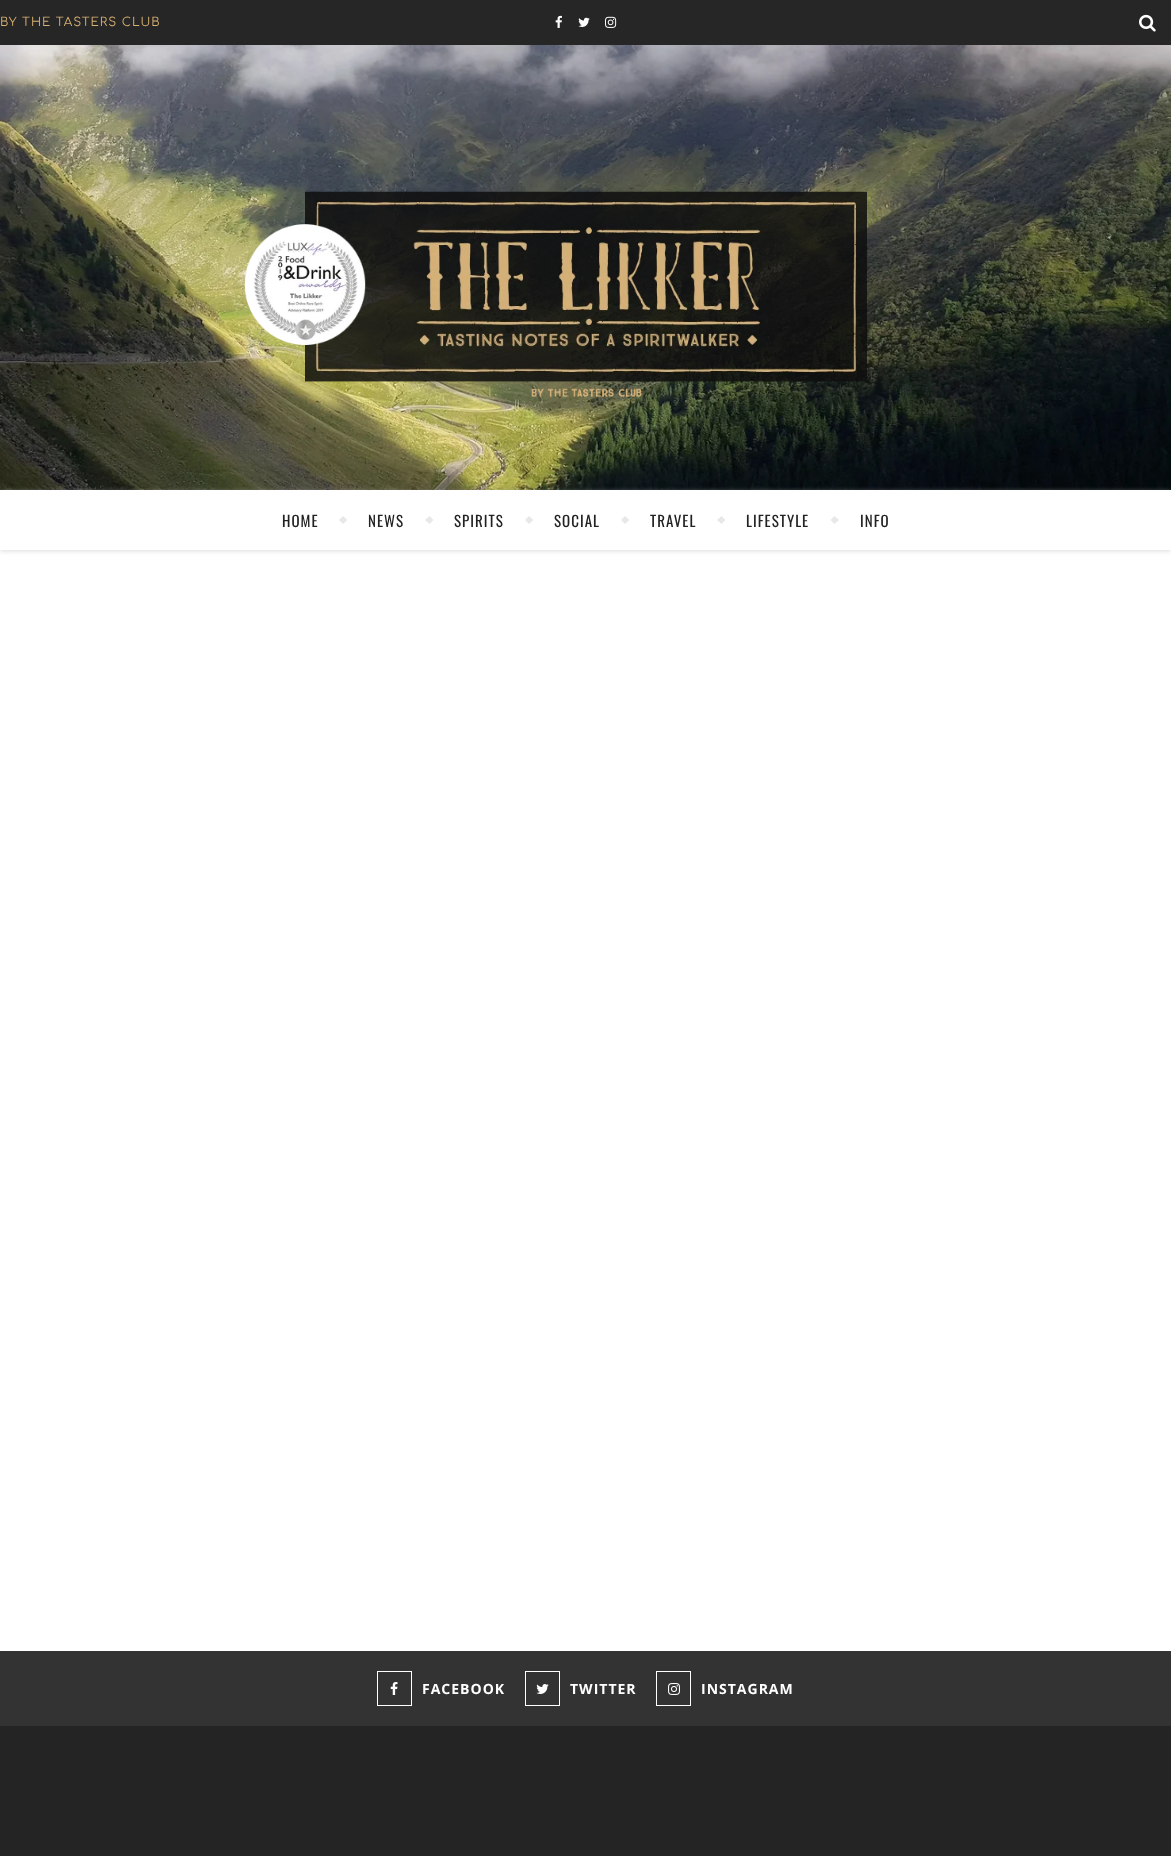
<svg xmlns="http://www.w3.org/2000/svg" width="1171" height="1856">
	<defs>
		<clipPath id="clip1"><path d="M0 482H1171V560H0ZM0 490H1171V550H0Z" clip-rule="evenodd" /></clipPath>
	</defs>
	<rect width="100%" height="100%" fill="#FFFFFF" />
	<rect x="0" y="0" width="1171" height="45" fill="#262626" />
	<text x="0" y="26" font-family="Comfortaa" font-size="12" letter-spacing="1" fill="#D8B072">BY THE TASTERS CLUB</text>
	<image x="555" y="15" width="7" height="13" href="assets/img1.png" />
	<image x="578" y="17" width="12" height="10" href="assets/img2.png" />
	<image x="605" y="16" width="12" height="12" href="assets/img3.png" />
	<image x="1139" y="14" width="17" height="18" href="assets/img4.png" />
	<image x="0" y="45" width="1171" height="445" href="assets/img5.png" />
	<image x="244" y="191" width="623" height="207" href="assets/img6.png" />
	<g clip-path="url(#clip1)">
		<rect x="0" y="491" width="1171" height="60" fill="#B9B9B9" fill-opacity="0.5" filter="blur(2.5px)" />
	</g>
	<text x="282" y="527" font-family="Oswald" font-size="15" letter-spacing="1" fill="#222222">HOME</text>
	<path d="M339 520L343 516L347.5 520L343 524Z" fill="#E8E8E8" />
	<text x="368" y="527" font-family="Oswald" font-size="15" letter-spacing="1" fill="#222222">NEWS</text>
	<path d="M425 520L429.5 516L433.5 520L429.5 524Z" fill="#E8E8E8" />
	<text x="454" y="527" font-family="Oswald" font-size="15" letter-spacing="1" fill="#222222">SPIRITS</text>
	<path d="M525 520L529 516L533.5 520L529 524Z" fill="#E8E8E8" />
	<text x="554" y="527" font-family="Oswald" font-size="15" letter-spacing="1" fill="#222222">SOCIAL</text>
	<path d="M621 520L625 516L629.5 520L625 524Z" fill="#E8E8E8" />
	<text x="650" y="527" font-family="Oswald" font-size="15" letter-spacing="1" fill="#222222">TRAVEL</text>
	<path d="M717 520L721.5 516L725.5 520L721.5 524Z" fill="#E8E8E8" />
	<text x="746" y="527" font-family="Oswald" font-size="15" letter-spacing="1" fill="#222222">LIFESTYLE</text>
	<path d="M830.5 520L834.5 516L839 520L834.5 524Z" fill="#E8E8E8" />
	<text x="860" y="527" font-family="Oswald" font-size="15" letter-spacing="1" fill="#222222">INFO</text>
	<rect x="0" y="1651" width="1171" height="75" fill="#333333" />
	<rect x="377.5" y="1671.5" width="34" height="34" fill="none" stroke="#FFFFFF" />
	<image x="390" y="1682" width="8" height="13" href="assets/img7.png" />
	<text x="422" y="1694" font-family="Open Sans" font-size="14" font-weight="700" letter-spacing="1" fill="#FFFFFF">FACEBOOK</text>
	<rect x="525.5" y="1671.5" width="34" height="34" fill="none" stroke="#FFFFFF" />
	<image x="536" y="1684" width="13" height="10" href="assets/img8.png" />
	<text x="570" y="1694" font-family="Open Sans" font-size="14" font-weight="700" letter-spacing="1" fill="#FFFFFF">TWITTER</text>
	<rect x="656.5" y="1671.5" width="34" height="34" fill="none" stroke="#FFFFFF" />
	<image x="668" y="1683" width="12" height="12" href="assets/img9.png" />
	<text x="701" y="1694" font-family="Open Sans" font-size="14" font-weight="700" letter-spacing="1" fill="#FFFFFF">INSTAGRAM</text>
	<rect x="0" y="1726" width="1171" height="130" fill="#242424" />
</svg>
